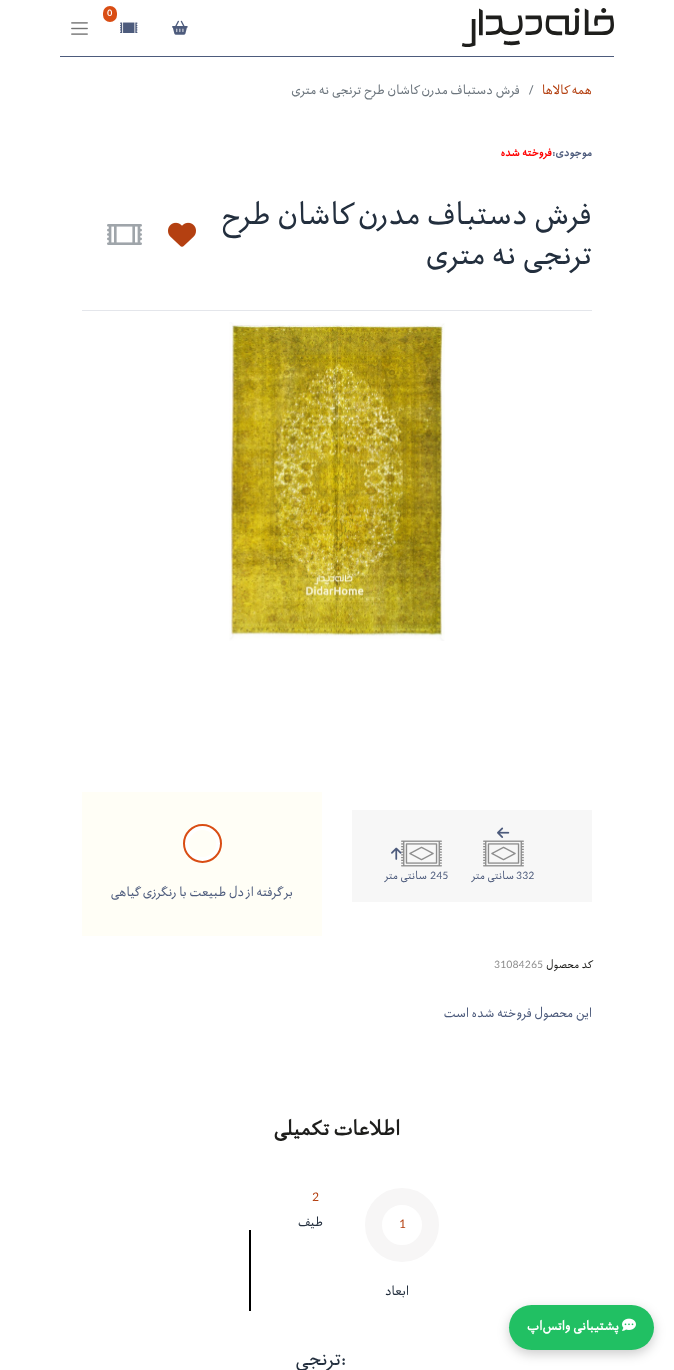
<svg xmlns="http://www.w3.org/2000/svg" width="674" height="1370">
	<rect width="100%" height="100%" fill="#FFFFFF" />
	<rect x="60" y="56" width="554" height="1" fill="#4D5B7C" />
	<image x="461" y="8" width="153" height="39" href="assets/img1.png" />
	<rect x="103" y="6" width="14" height="16" rx="7" fill="#D94D14" />
	<text x="107" y="16" font-family="'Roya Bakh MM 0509'" font-size="10" font-weight="700" fill="#FFFFFF">0</text>
	<image x="120" y="22" width="18" height="11" href="assets/img2.png" />
	<image x="172" y="20" width="16" height="15" href="assets/img3.png" />
	<image x="71" y="22" width="17" height="13" href="assets/img4.png" />
	<text x="592" y="94" font-family="'Roya Bakh MM 0509'" font-size="14" font-weight="200" direction="rtl" fill="#B44011">همه کالاها</text>
	<text x="528" y="94" font-family="'Roya Bakh MM 0509'" font-size="14" font-weight="200" fill="#6C757D">/</text>
	<text x="520" y="94" font-family="'Roya Bakh MM 0509'" font-size="14" font-weight="200" direction="rtl" fill="#6C757D">فرش دستباف مدرن کاشان طرح ترنجی نه متری</text>
	<text x="592" y="156" font-family="'Roya Bakh MM 0509'" font-size="12" font-weight="700" direction="rtl" fill="#4D5B7C">موجودی:</text>
	<text x="552" y="156" font-family="'Roya Bakh MM 0509'" font-size="12" font-weight="700" direction="rtl" fill="#FF0000">فروخته شده</text>
	<rect x="82" y="310" width="510" height="1" fill="#E4E6EB" />
	<g font-family="'Roya Bakh MM 0509'" font-size="33.25" font-weight="200" direction="rtl" fill="#232F3E">
		<text x="592" y="224">فرش دستباف مدرن کاشان طرح</text>
		<text x="592" y="264">ترنجی نه متری</text>
	</g>
	<image x="168" y="222" width="28" height="25" href="assets/img5.png" />
	<image x="107" y="224" width="35" height="21" href="assets/img6.png" />
	<image x="229" y="322" width="216" height="319" href="assets/img7.png" />
	<rect x="352" y="810" width="240" height="92" fill="#F7F7F7" />
	<image x="497" y="827" width="13" height="11" href="assets/img8.png" />
	<image x="483" y="840" width="41" height="27" href="assets/img9.png" />
	<text x="516" y="879" font-family="'Roya Bakh MM 0509'" font-size="12" font-weight="200" fill="#4D5B7C">332</text>
	<text x="514" y="879" font-family="'Roya Bakh MM 0509'" font-size="12" font-weight="200" direction="rtl" fill="#4D5B7C">سانتی متر</text>
	<image x="401" y="840" width="41" height="27" href="assets/img9.png" />
	<image x="391" y="847" width="11" height="13" href="assets/img10.png" />
	<text x="430" y="879" font-family="'Roya Bakh MM 0509'" font-size="12" font-weight="200" fill="#4D5B7C">245</text>
	<text x="427" y="879" font-family="'Roya Bakh MM 0509'" font-size="12" font-weight="200" direction="rtl" fill="#4D5B7C">سانتی متر</text>
	<rect x="82" y="792" width="240" height="144" fill="#FFFEF6" />
	<circle cx="202.5" cy="843.5" r="17" fill="none" stroke="#D94D14" stroke-width="5" />
	<circle cx="202.5" cy="843.5" r="15.5" fill="none" stroke="#FFFFFF" stroke-width="4" />
	<text x="293" y="896" font-family="'Roya Bakh MM 0509'" font-size="14" font-weight="200" direction="rtl" fill="#4D5B7C">بر گرفته از دل طبیعت با رنگرزی گیاهی</text>
	<text x="592" y="968" font-family="'Roya Bakh MM 0509'" font-size="12" font-weight="200" direction="rtl" fill="#1E1E1C">کد محصول</text>
	<text x="494" y="968" font-family="'Roya Bakh MM 0509'" font-size="12" font-weight="200" fill="#8D8D8D">31084265</text>
	<text x="592" y="1017" font-family="'Roya Bakh MM 0509'" font-size="14" font-weight="200" direction="rtl" fill="#4D5B7C">این محصول فروخته شده است</text>
	<text x="400" y="1135" font-family="'Roya Bakh MM 0509'" font-size="22" font-weight="700" direction="rtl" fill="#1E1E1C">اطلاعات تکمیلی</text>
	<text x="312" y="1201" font-family="'Roya Bakh MM 0509'" font-size="14" font-weight="200" fill="#B44011">2</text>
	<text x="323" y="1226" font-family="'Roya Bakh MM 0509'" font-size="14" font-weight="200" direction="rtl" fill="#232F3E">طیف</text>
	<circle cx="402" cy="1225" r="28.5" fill="none" stroke="#F7F6F6" stroke-width="17" />
	<text x="399" y="1228" font-family="'Roya Bakh MM 0509'" font-size="14" font-weight="200" fill="#B44011">1</text>
	<text x="409" y="1295" font-family="'Roya Bakh MM 0509'" font-size="14" font-weight="200" direction="rtl" fill="#232F3E">ابعاد</text>
	<rect x="249" y="1230" width="2" height="81" fill="#000000" />
	<text x="341" y="1365" font-family="'Roya Bakh MM 0509'" font-size="22" font-weight="200" fill="#232F3E">:</text>
	<text x="341" y="1365" font-family="'Roya Bakh MM 0509'" font-size="22" font-weight="200" direction="rtl" fill="#232F3E">ترنجی</text>
	<rect x="509" y="1309" width="145" height="45" rx="22.5" fill="#000000" fill-opacity="0.2" filter="blur(6px)" />
	<rect x="509" y="1305" width="145" height="45" rx="22.5" fill="#21C063" />
	<image x="622" y="1318" width="14" height="13" href="assets/img11.png" />
	<text x="619" y="1330" font-family="'Roya Bakh MM 0509'" font-size="14" font-weight="700" direction="rtl" fill="#FFFFFF">پشتیبانی واتس‌اپ</text>
</svg>
